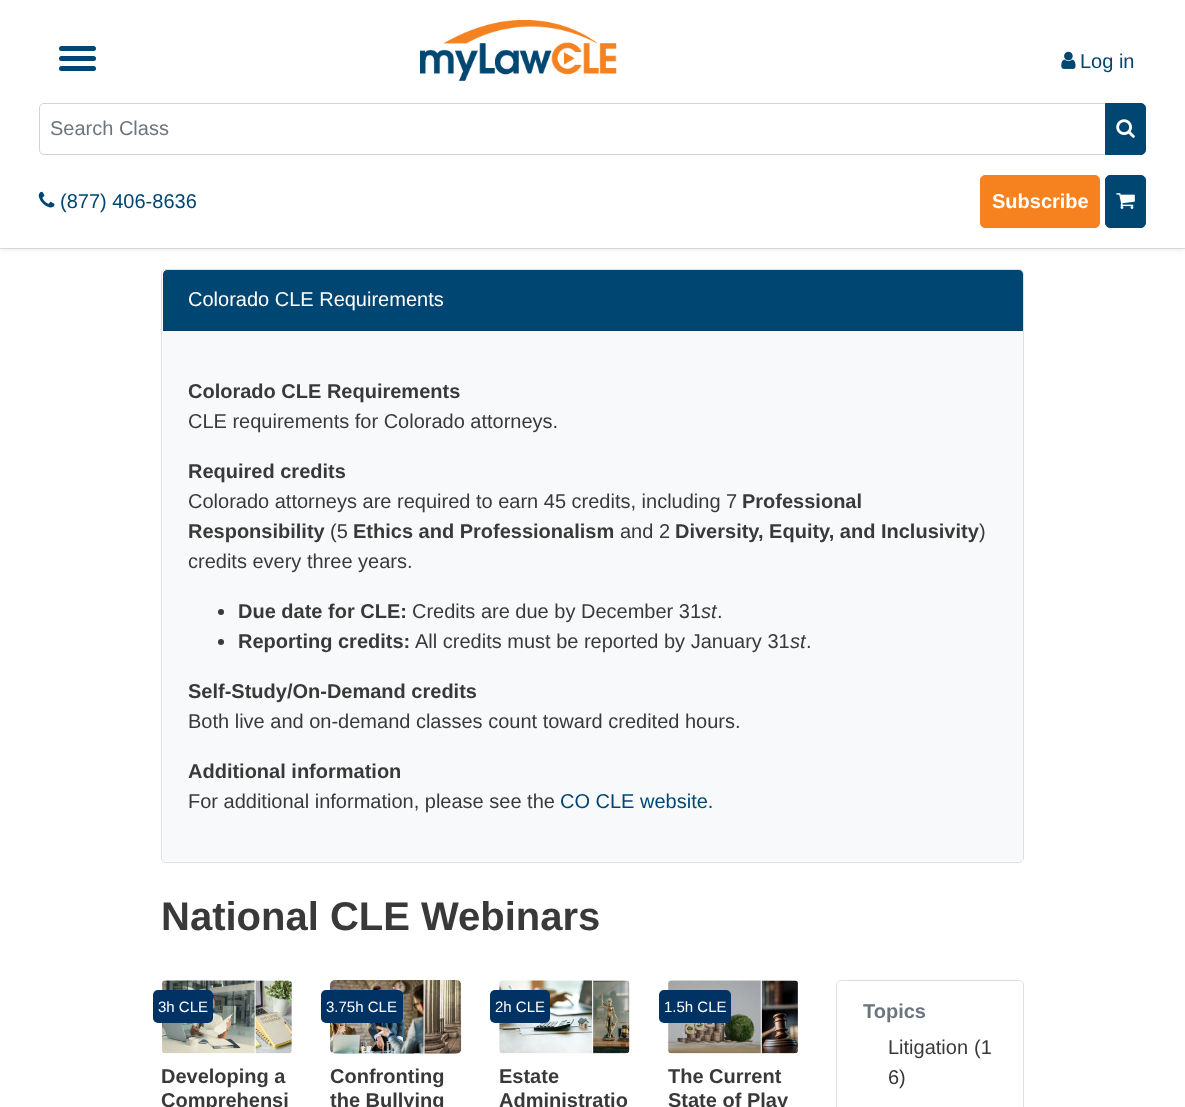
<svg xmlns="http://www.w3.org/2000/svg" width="1185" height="1107">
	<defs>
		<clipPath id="clip1"><path d="M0 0H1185V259H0ZM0 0H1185V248H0Z" clip-rule="evenodd" /></clipPath>
		<clipPath id="clip2"><rect x="668" y="1064" width="131" height="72" /></clipPath>
	</defs>
	<rect width="100%" height="100%" fill="#FFFFFF" />
	<rect x="0" y="248" width="1185" height="1" fill="#DEE2E6" />
	<g clip-path="url(#clip1)">
		<rect x="0" y="3" width="1185" height="247" fill="#000000" fill-opacity="0.07" filter="blur(2.5px)" />
	</g>
	<rect x="59" y="56" width="37" height="5" rx="2.5" fill="#004672" />
	<rect x="59" y="46" width="37" height="5" rx="2.5" fill="#004672" />
	<rect x="59" y="66" width="37" height="5" rx="2.5" fill="#004672" />
	<image x="420" y="20" width="197" height="61" href="assets/img1.png" />
	<image x="1061" y="51" width="15" height="18" href="assets/img2.png" />
	<text x="1080" y="68" font-family="Liberation Sans" font-size="20" fill="#004672">Log in</text>
	<path d="M44 103.5H1105.5V154.5H44C41.5 154.5 39.5 152.5 39.5 150V108C39.5 105.5 41.5 103.5 44 103.5Z" fill="none" stroke="#CED4DA" />
	<text x="50" y="135" font-family="Liberation Sans" font-size="20" fill="#6C757D">Search Class</text>
	<path d="M1105.5 103.5H1141C1143.5 103.5 1145.5 105.5 1145.5 108V150C1145.5 152.5 1143.5 154.5 1141 154.5H1105.5Z" fill="#004672" stroke="#004672" />
	<image x="1116" y="119" width="19" height="19" href="assets/img3.png" />
	<image x="38" y="191" width="17" height="17" href="assets/img4.png" />
	<text x="60" y="208" font-family="Liberation Sans" font-size="20" fill="#004672">(877) 406-8636</text>
	<rect x="980.5" y="175.5" width="119" height="52" rx="4.5" fill="#F5821F" stroke="#F5821F" />
	<text x="992" y="208" font-family="Liberation Sans" font-size="20" font-weight="700" fill="#FFFFFF">Subscribe</text>
	<rect x="1105.5" y="175.5" width="40" height="52" rx="4.5" fill="#004672" stroke="#004672" />
	<image x="1116" y="193" width="19" height="16" href="assets/img5.png" />
	<rect x="161.5" y="269.5" width="862" height="593" rx="4.5" fill="none" stroke="#DFDFDF" />
	<path d="M167 270H1019C1021 270 1023 272 1023 274V331H163V274C163 272 165 270 167 270Z" fill="#004672" />
	<rect x="163" y="330" width="860" height="1" fill="#003D64" />
	<text x="188" y="306" font-family="Liberation Sans" font-size="20" fill="#FFFFFF">Colorado CLE Requirements</text>
	<rect x="163" y="331" width="860" height="530" fill="#F8F9FA" />
	<text x="188" y="398" font-family="Liberation Sans" font-size="20" font-weight="700" fill="#3A3939">Colorado CLE Requirements</text>
	<text x="188" y="428" font-family="Liberation Sans" font-size="20" fill="#3A3939">CLE requirements for Colorado attorneys.</text>
	<text x="188" y="478" font-family="Liberation Sans" font-size="20" font-weight="700" fill="#3A3939">Required credits</text>
	<text x="188" y="508" font-family="Liberation Sans" font-size="20" fill="#3A3939">Colorado attorneys are required to earn 45 credits, including 7</text>
	<g font-family="Liberation Sans" font-size="20" font-weight="700" fill="#3A3939">
		<text x="742" y="508">Professional</text>
		<text x="188" y="538">Responsibility</text>
	</g>
	<text x="330" y="538" font-family="Liberation Sans" font-size="20" fill="#3A3939">(5</text>
	<text x="353" y="538" font-family="Liberation Sans" font-size="20" font-weight="700" fill="#3A3939">Ethics and Professionalism</text>
	<text x="620" y="538" font-family="Liberation Sans" font-size="20" fill="#3A3939">and 2</text>
	<text x="675" y="538" font-family="Liberation Sans" font-size="20" font-weight="700" fill="#3A3939">Diversity, Equity, and Inclusivity</text>
	<g font-family="Liberation Sans" font-size="20" fill="#3A3939">
		<text x="979" y="538">)</text>
		<text x="188" y="568">credits every three years.</text>
	</g>
	<circle cx="221" cy="612" r="3" fill="#3A3939" />
	<text x="238" y="618" font-family="Liberation Sans" font-size="20" font-weight="700" fill="#3A3939">Due date for CLE:</text>
	<text x="412" y="618" font-family="Liberation Sans" font-size="20" fill="#3A3939">Credits are due by December 31</text>
	<text x="701" y="618" font-family="Liberation Sans" font-size="20" font-style="italic" fill="#3A3939">st</text>
	<text x="717" y="618" font-family="Liberation Sans" font-size="20" fill="#3A3939">.</text>
	<circle cx="221" cy="642" r="3" fill="#3A3939" />
	<text x="238" y="648" font-family="Liberation Sans" font-size="20" font-weight="700" fill="#3A3939">Reporting credits:</text>
	<text x="415" y="648" font-family="Liberation Sans" font-size="20" fill="#3A3939">All credits must be reported by January 31</text>
	<text x="790" y="648" font-family="Liberation Sans" font-size="20" font-style="italic" fill="#3A3939">st</text>
	<text x="806" y="648" font-family="Liberation Sans" font-size="20" fill="#3A3939">.</text>
	<text x="188" y="698" font-family="Liberation Sans" font-size="20" font-weight="700" fill="#3A3939">Self-Study/On-Demand credits</text>
	<text x="188" y="728" font-family="Liberation Sans" font-size="20" fill="#3A3939">Both live and on-demand classes count toward credited hours.</text>
	<text x="188" y="778" font-family="Liberation Sans" font-size="20" font-weight="700" fill="#3A3939">Additional information</text>
	<text x="188" y="808" font-family="Liberation Sans" font-size="20" fill="#3A3939">For additional information, please see the</text>
	<text x="560" y="808" font-family="Liberation Sans" font-size="20" fill="#004672">CO CLE website.</text>
	<text x="161" y="930" font-family="Liberation Sans" font-size="40" font-weight="700" fill="#3A3939">National CLE Webinars</text>
	<image x="161" y="980" width="132" height="74" href="assets/img6.png" />
	<rect x="153" y="990" width="60" height="33" rx="5" fill="#003264" />
	<text x="158" y="1012" font-family="Liberation Sans" font-size="15" fill="#FFFFFF">3h CLE</text>
	<g font-family="Liberation Sans" font-size="20" font-weight="700" fill="#3A3939">
		<text x="161" y="1083">Developing a</text>
		<text x="161" y="1107">Comprehensi</text>
	</g>
	<image x="330" y="980" width="132" height="74" href="assets/img7.png" />
	<rect x="321" y="990" width="82" height="33" rx="5" fill="#003264" />
	<text x="326" y="1012" font-family="Liberation Sans" font-size="15" fill="#FFFFFF">3.75h CLE</text>
	<g font-family="Liberation Sans" font-size="20" font-weight="700" fill="#3A3939">
		<text x="330" y="1083">Confronting</text>
		<text x="330" y="1107">the Bullying</text>
	</g>
	<image x="499" y="980" width="131" height="74" href="assets/img8.png" />
	<rect x="490" y="990" width="60" height="33" rx="5" fill="#003264" />
	<text x="495" y="1012" font-family="Liberation Sans" font-size="15" fill="#FFFFFF">2h CLE</text>
	<g font-family="Liberation Sans" font-size="20" font-weight="700" fill="#3A3939">
		<text x="499" y="1083">Estate</text>
		<text x="499" y="1107">Administratio</text>
	</g>
	<image x="668" y="980" width="131" height="74" href="assets/img9.png" />
	<rect x="659" y="990" width="72" height="33" rx="5" fill="#003264" />
	<text x="664" y="1012" font-family="Liberation Sans" font-size="15" fill="#FFFFFF">1.5h CLE</text>
	<g clip-path="url(#clip2)">
		<text x="668" y="1083" font-family="Liberation Sans" font-size="20" font-weight="700" fill="#3A3939">The Current</text>
	</g>
	<text x="668" y="1107" font-family="Liberation Sans" font-size="20" font-weight="700" fill="#3A3939">State of Play</text>
	<rect x="836.5" y="980.5" width="187" height="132" rx="4.5" fill="none" stroke="#DFDFDF" />
	<text x="863" y="1018" font-family="Liberation Sans" font-size="20" font-weight="700" fill="#6C757D">Topics</text>
	<g font-family="Liberation Sans" font-size="20" fill="#3A3939">
		<text x="888" y="1054">Litigation</text>
		<text x="974" y="1054">(1</text>
		<text x="888" y="1084">6)</text>
	</g>
</svg>
